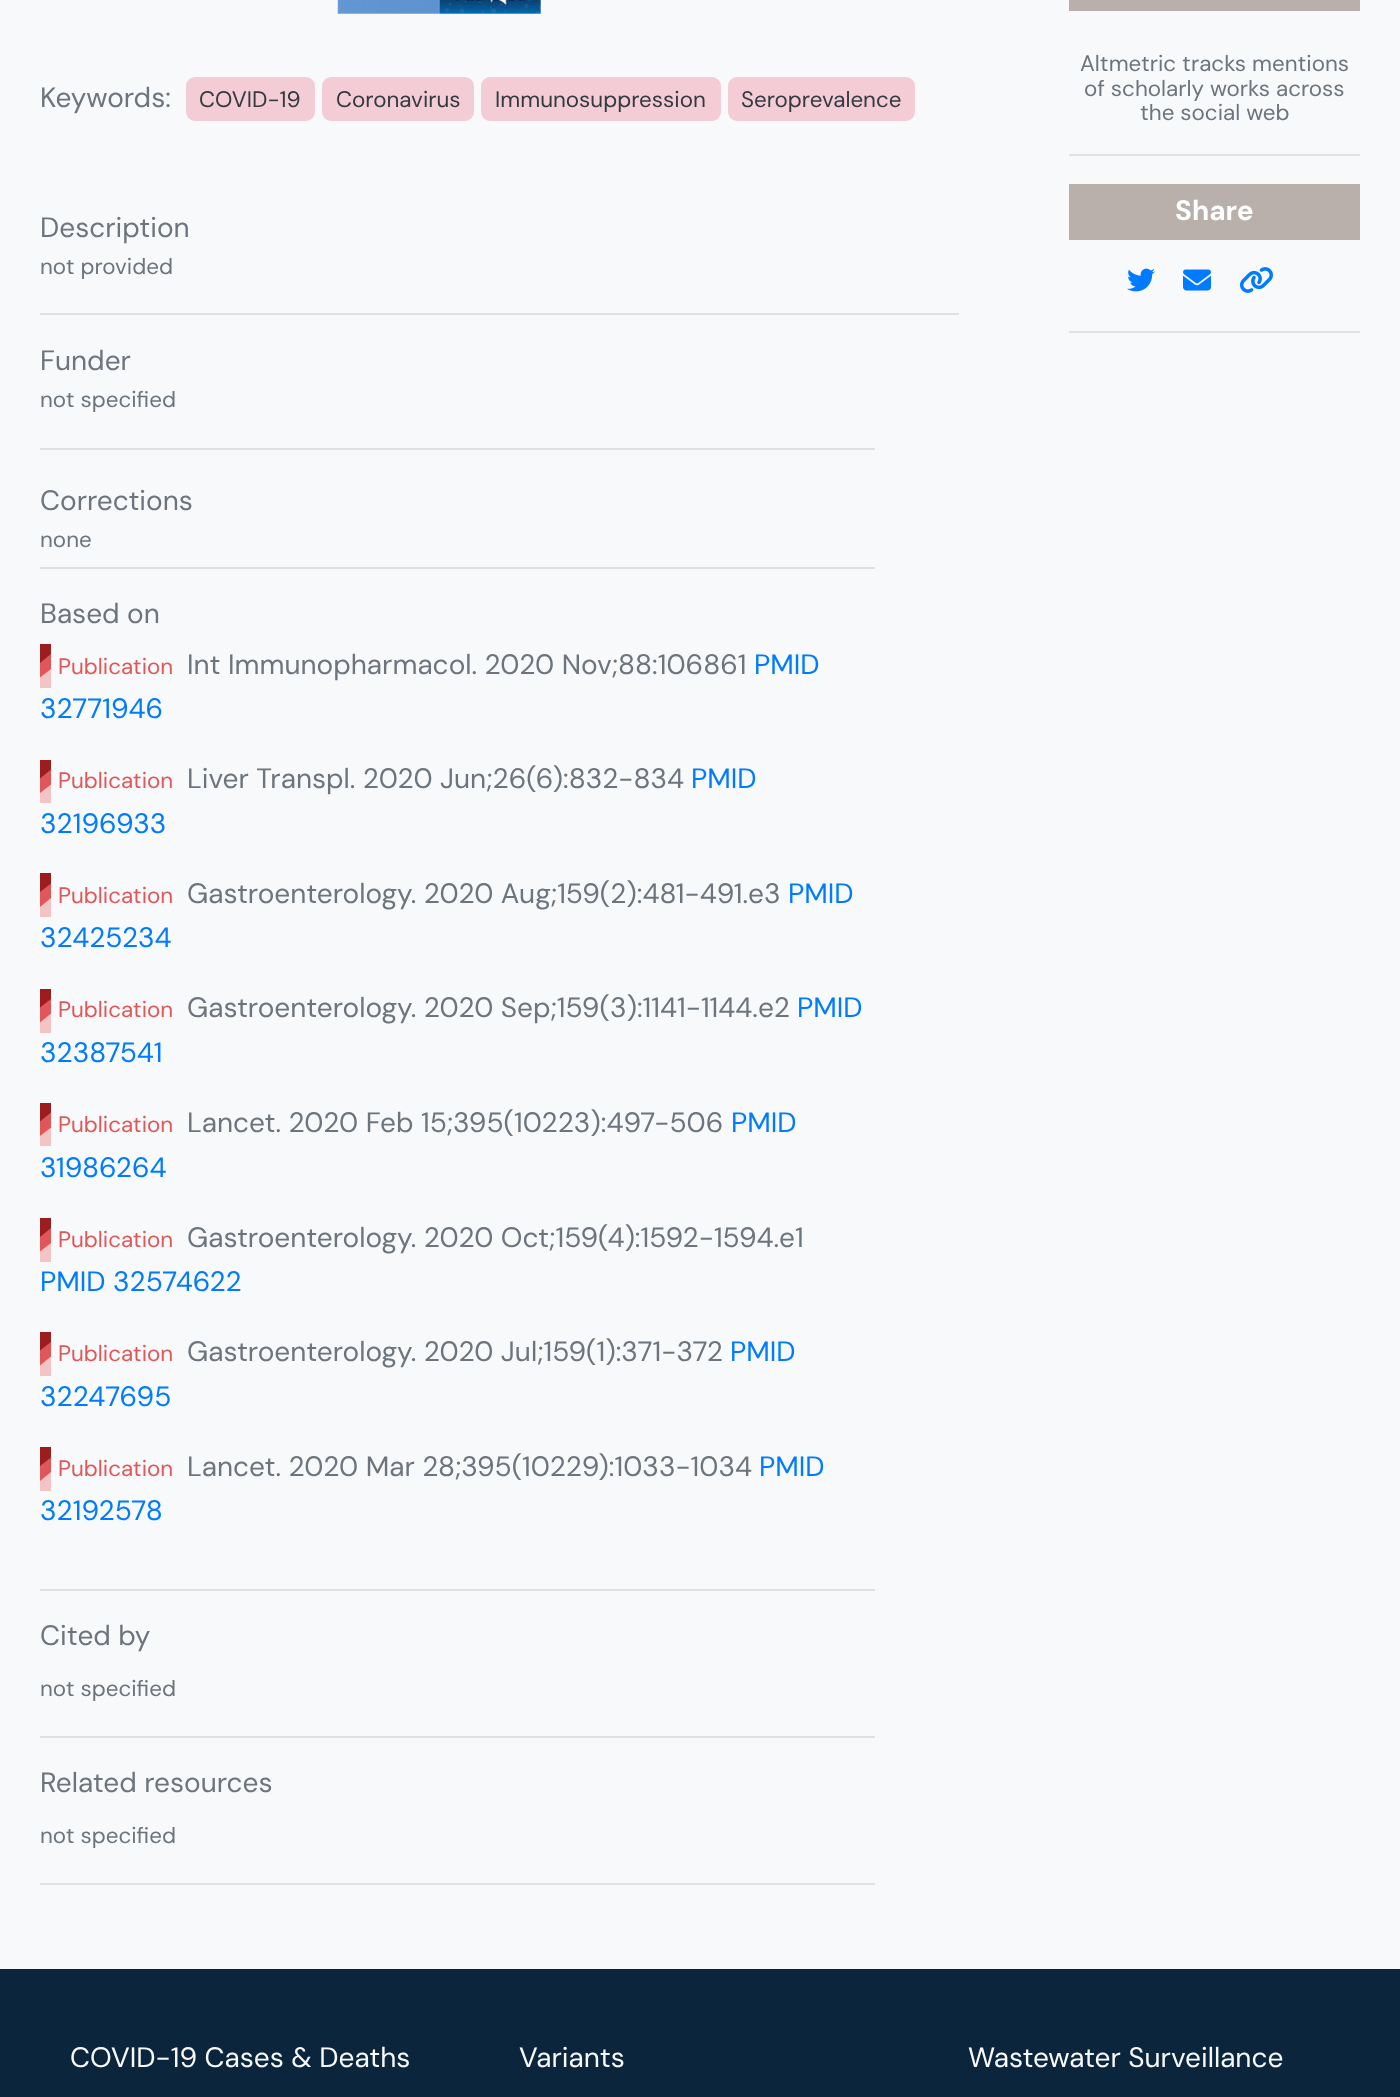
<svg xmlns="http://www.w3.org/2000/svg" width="1400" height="2097">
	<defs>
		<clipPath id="clip1"><rect x="40" y="760" width="11" height="43" /></clipPath>
		<clipPath id="clip2"><rect x="40" y="1103" width="11" height="43" /></clipPath>
	</defs>
	<rect width="100%" height="100%" fill="#F8F9FA" />
	<rect x="40" y="313" width="919" height="2" fill="#DEE2E6" />
	<image x="337" y="0" width="204" height="14" href="assets/img1.png" />
	<text x="40" y="107" font-family="DM Sans" font-size="28" fill="#6C757D">Keywords:</text>
	<rect x="186" y="77" width="129" height="44" rx="9" fill="#F3CCD6" />
	<text x="199" y="107" font-family="DM Sans" font-size="22.4" fill="#343A40">COVID-19</text>
	<rect x="322" y="77" width="152" height="44" rx="9" fill="#F3CCD6" />
	<text x="336" y="107" font-family="DM Sans" font-size="22.4" fill="#343A40">Coronavirus</text>
	<rect x="481" y="77" width="240" height="44" rx="9" fill="#F3CCD6" />
	<text x="495" y="107" font-family="DM Sans" font-size="22.4" fill="#343A40">Immunosuppression</text>
	<rect x="728" y="77" width="187" height="44" rx="9" fill="#F3CCD6" />
	<text x="741" y="107" font-family="DM Sans" font-size="22.4" fill="#343A40">Seroprevalence</text>
	<text x="40" y="237" font-family="DM Sans" font-size="28" fill="#6C757D">Description</text>
	<text x="40" y="274" font-family="DM Sans" font-size="22.4" fill="#6C757D">not provided</text>
	<rect x="40" y="448" width="835" height="2" fill="#DEE2E6" />
	<text x="40" y="370" font-family="DM Sans" font-size="28" fill="#6C757D">Funder</text>
	<text x="40" y="407" font-family="DM Sans" font-size="22.4" fill="#6C757D">not specified</text>
	<rect x="40" y="567" width="835" height="2" fill="#DEE2E6" />
	<text x="40" y="510" font-family="DM Sans" font-size="28" fill="#6C757D">Corrections</text>
	<text x="40" y="547" font-family="DM Sans" font-size="22.4" fill="#6C757D">none</text>
	<rect x="40" y="1589" width="835" height="2" fill="#DEE2E6" />
	<text x="40" y="623" font-family="DM Sans" font-size="28" fill="#6C757D">Based on</text>
	<rect x="40" y="669" width="11" height="19" fill="#F4C3C4" />
	<path d="M40 644H51V669L40 677.5Z" fill="#E15759" />
	<path d="M40 644H51V654L40 663Z" fill="#9D1C1E" />
	<text x="58" y="674" font-family="DM Sans" font-size="22.4" fill="#E15759">Publication</text>
	<text x="187" y="674" font-family="DM Sans" font-size="28" fill="#6C757D">Int Immunopharmacol. 2020 Nov;88:106861</text>
	<g font-family="DM Sans" font-size="28" fill="#007BFF">
		<text x="754" y="674">PMID</text>
		<text x="40" y="718">32771946</text>
	</g>
	<rect x="40" y="784" width="11" height="19" fill="#F4C3C4" />
	<g clip-path="url(#clip1)">
		<path d="M40 759.5H51V784.5L40 793Z" fill="#E15759" />
		<path d="M40 759.5H51V769.5L40 778.5Z" fill="#9D1C1E" />
	</g>
	<text x="58" y="788" font-family="DM Sans" font-size="22.4" fill="#E15759">Publication</text>
	<text x="187" y="788" font-family="DM Sans" font-size="28" fill="#6C757D">Liver Transpl. 2020 Jun;26(6):832-834</text>
	<g font-family="DM Sans" font-size="28" fill="#007BFF">
		<text x="691" y="788">PMID</text>
		<text x="40" y="833">32196933</text>
	</g>
	<rect x="40" y="898" width="11" height="19" fill="#F4C3C4" />
	<path d="M40 873H51V898L40 907Z" fill="#E15759" />
	<path d="M40 873H51V883.5L40 892Z" fill="#9D1C1E" />
	<text x="58" y="903" font-family="DM Sans" font-size="22.4" fill="#E15759">Publication</text>
	<text x="187" y="903" font-family="DM Sans" font-size="28" fill="#6C757D">Gastroenterology. 2020 Aug;159(2):481-491.e3</text>
	<g font-family="DM Sans" font-size="28" fill="#007BFF">
		<text x="788" y="903">PMID</text>
		<text x="40" y="947">32425234</text>
	</g>
	<rect x="40" y="1013" width="11" height="20" fill="#F4C3C4" />
	<path d="M40 989H51V1013.5L40 1022.5Z" fill="#E15759" />
	<path d="M40 989H51V999L40 1007.5Z" fill="#9D1C1E" />
	<text x="58" y="1017" font-family="DM Sans" font-size="22.4" fill="#E15759">Publication</text>
	<text x="187" y="1017" font-family="DM Sans" font-size="28" fill="#6C757D">Gastroenterology. 2020 Sep;159(3):1141-1144.e2</text>
	<g font-family="DM Sans" font-size="28" fill="#007BFF">
		<text x="797" y="1017">PMID</text>
		<text x="40" y="1062">32387541</text>
	</g>
	<rect x="40" y="1127" width="11" height="19" fill="#F4C3C4" />
	<g clip-path="url(#clip2)">
		<path d="M40 1102.5H51V1127.5L40 1136Z" fill="#E15759" />
		<path d="M40 1102.5H51V1112.5L40 1121.5Z" fill="#9D1C1E" />
	</g>
	<text x="58" y="1132" font-family="DM Sans" font-size="22.4" fill="#E15759">Publication</text>
	<text x="187" y="1132" font-family="DM Sans" font-size="28" fill="#6C757D">Lancet. 2020 Feb 15;395(10223):497-506</text>
	<g font-family="DM Sans" font-size="28" fill="#007BFF">
		<text x="731" y="1132">PMID</text>
		<text x="40" y="1177">31986264</text>
	</g>
	<rect x="40" y="1243" width="11" height="19" fill="#F4C3C4" />
	<path d="M40 1218H51V1243L40 1251.5Z" fill="#E15759" />
	<path d="M40 1218H51V1228L40 1237Z" fill="#9D1C1E" />
	<text x="58" y="1247" font-family="DM Sans" font-size="22.4" fill="#E15759">Publication</text>
	<text x="187" y="1247" font-family="DM Sans" font-size="28" fill="#6C757D">Gastroenterology. 2020 Oct;159(4):1592-1594.e1</text>
	<text x="40" y="1291" font-family="DM Sans" font-size="28" fill="#007BFF">PMID 32574622</text>
	<rect x="40" y="1356" width="11" height="20" fill="#F4C3C4" />
	<path d="M40 1332H51V1356.5L40 1365.5Z" fill="#E15759" />
	<path d="M40 1332H51V1342L40 1350.5Z" fill="#9D1C1E" />
	<text x="58" y="1361" font-family="DM Sans" font-size="22.4" fill="#E15759">Publication</text>
	<text x="187" y="1361" font-family="DM Sans" font-size="28" fill="#6C757D">Gastroenterology. 2020 Jul;159(1):371-372</text>
	<g font-family="DM Sans" font-size="28" fill="#007BFF">
		<text x="730" y="1361">PMID</text>
		<text x="40" y="1406">32247695</text>
	</g>
	<rect x="40" y="1472" width="11" height="19" fill="#F4C3C4" />
	<path d="M40 1447H51V1472L40 1481Z" fill="#E15759" />
	<path d="M40 1447H51V1457.5L40 1466Z" fill="#9D1C1E" />
	<text x="58" y="1476" font-family="DM Sans" font-size="22.4" fill="#E15759">Publication</text>
	<text x="187" y="1476" font-family="DM Sans" font-size="28" fill="#6C757D">Lancet. 2020 Mar 28;395(10229):1033-1034</text>
	<g font-family="DM Sans" font-size="28" fill="#007BFF">
		<text x="759" y="1476">PMID</text>
		<text x="40" y="1520">32192578</text>
	</g>
	<rect x="40" y="1736" width="835" height="2" fill="#DEE2E6" />
	<text x="40" y="1645" font-family="DM Sans" font-size="28" fill="#6C757D">Cited by</text>
	<text x="40" y="1696" font-family="DM Sans" font-size="22.4" fill="#6C757D">not specified</text>
	<rect x="40" y="1883" width="835" height="2" fill="#DEE2E6" />
	<text x="40" y="1792" font-family="DM Sans" font-size="28" fill="#6C757D">Related resources</text>
	<text x="40" y="1843" font-family="DM Sans" font-size="22.4" fill="#6C757D">not specified</text>
	<rect x="1069" y="154" width="291" height="2" fill="#DEE2E6" />
	<rect x="1069" y="0" width="291" height="11" fill="#BAB0AB" />
	<g font-family="DM Sans" font-size="22.4" fill="#6C757D">
		<text x="1080" y="71">Altmetric tracks mentions</text>
		<text x="1084" y="96">of scholarly works across</text>
		<text x="1140" y="120">the social web</text>
	</g>
	<rect x="1069" y="331" width="291" height="2" fill="#DEE2E6" />
	<rect x="1069" y="184" width="291" height="56" fill="#BAB0AB" />
	<text x="1175" y="220" font-family="DM Sans" font-size="28" font-weight="700" fill="#FFFFFF">Share</text>
	<image x="1127" y="268" width="28" height="24" href="assets/img2.png" />
	<image x="1183" y="269" width="28" height="22" href="assets/img3.png" />
	<image x="1240" y="267" width="33" height="26" href="assets/img4.png" />
	<rect x="0" y="1969" width="1400" height="128" fill="#0A253C" />
	<g font-family="DM Sans" font-size="28" fill="#F8F9FA">
		<text x="70" y="2067">COVID-19 Cases &amp; Deaths</text>
		<text x="519" y="2067">Variants</text>
		<text x="968" y="2067">Wastewater Surveillance</text>
	</g>
</svg>
